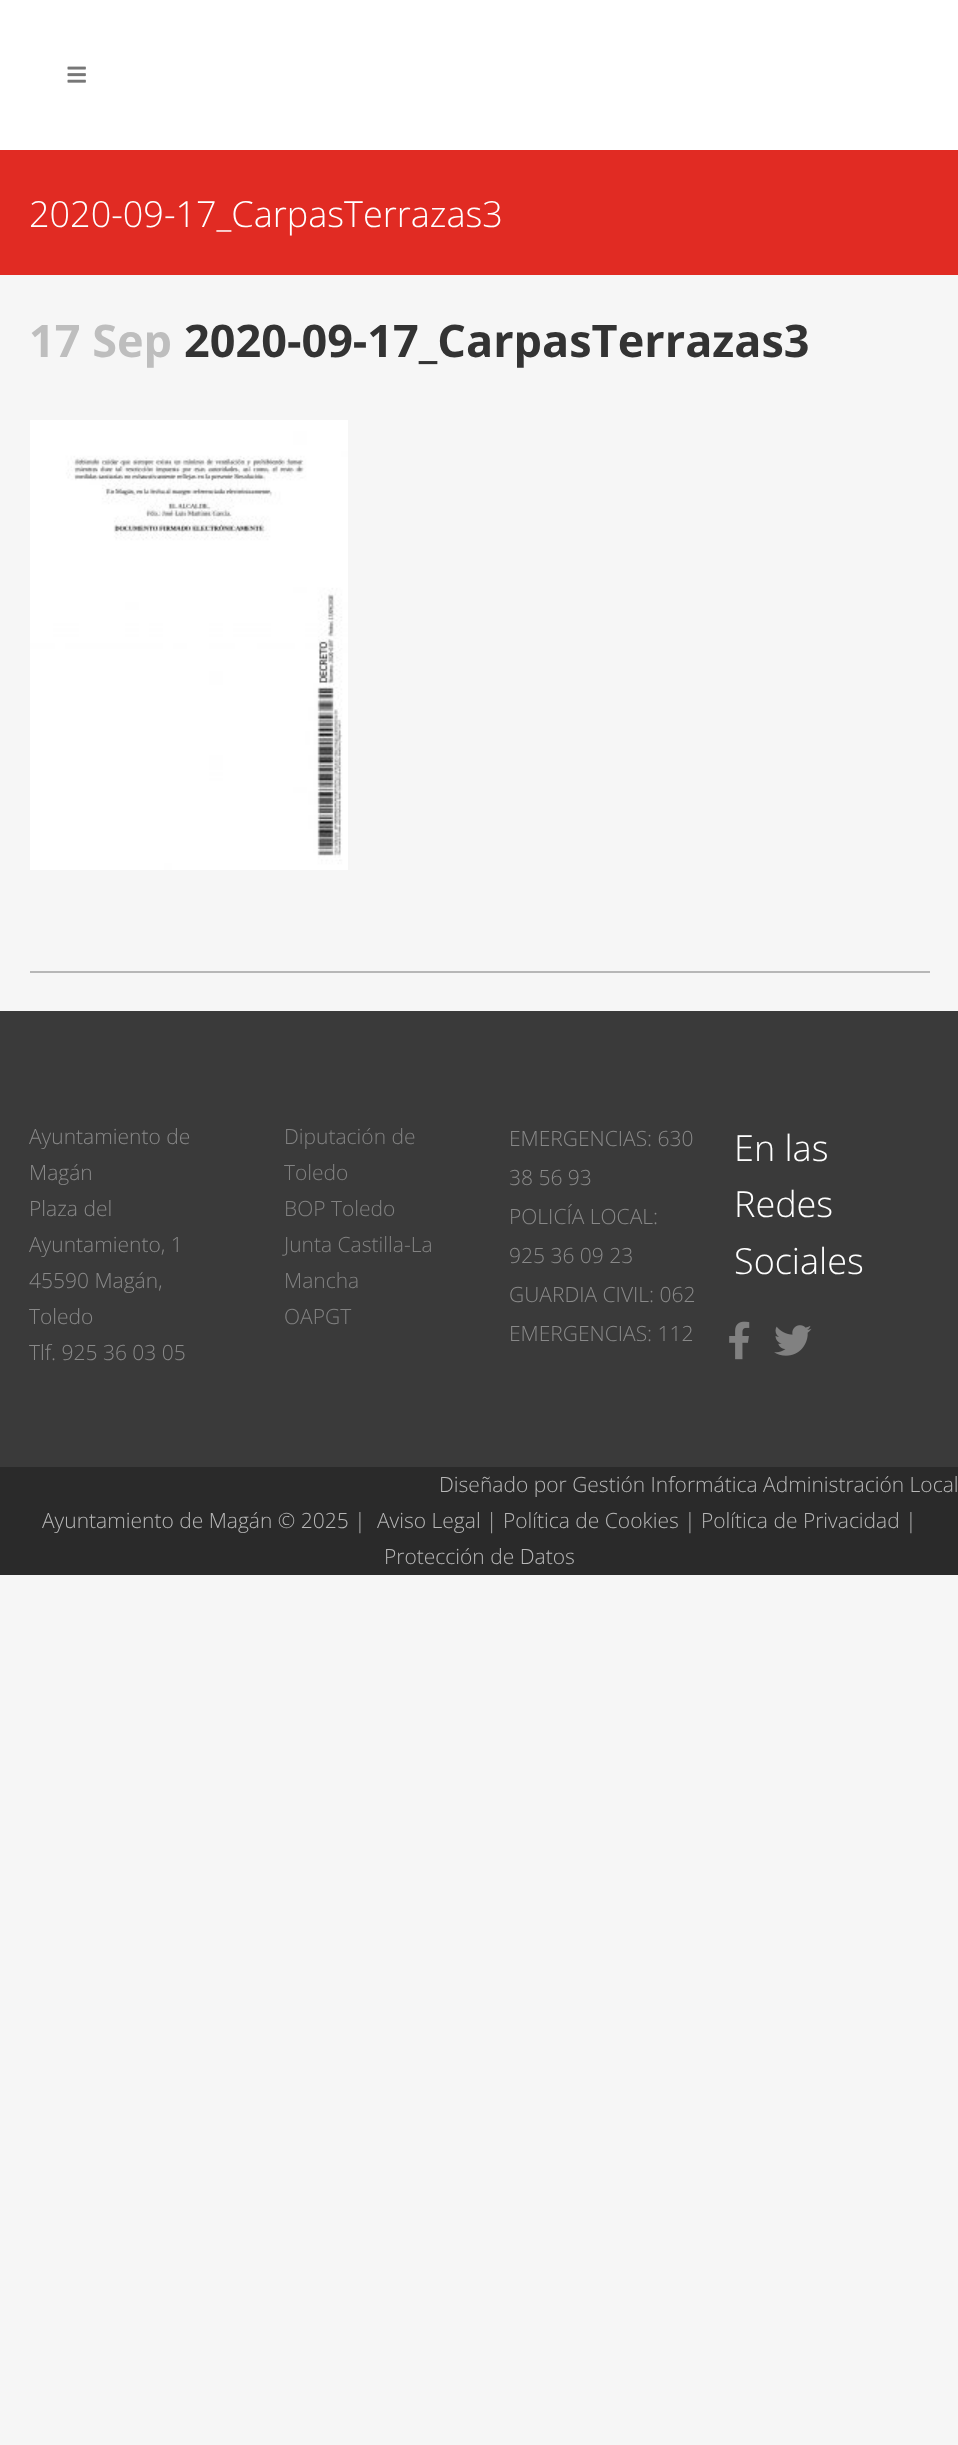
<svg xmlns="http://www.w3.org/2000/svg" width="958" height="2445">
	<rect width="100%" height="100%" fill="#F6F6F6" />
	<rect x="0" y="0" width="958" height="150" fill="#FFFFFF" />
	<image x="67" y="66" width="19" height="17" href="assets/img1.png" />
	<rect x="0" y="150" width="958" height="125" fill="#E12B23" />
	<text x="29" y="227" font-family="Open Sans" font-size="36" font-weight="300" fill="#FFFFFF">2020-09-17_CarpasTerrazas3</text>
	<rect x="30" y="971" width="900" height="2" fill="#B7B7B7" />
	<text x="29" y="357" font-family="Open Sans" font-size="45" font-weight="700" fill="#BEBEBE">17 Sep</text>
	<text x="184" y="357" font-family="Open Sans" font-size="45" font-weight="700" fill="#333333">2020-09-17_CarpasTerrazas3</text>
	<image x="30" y="420" width="318" height="450" href="assets/img2.png" />
	<rect x="0" y="1011" width="958" height="456" fill="#3A3A3A" />
	<g font-family="Open Sans" font-size="21" font-weight="300" fill="#888888">
		<text x="29" y="1144">Ayuntamiento de</text>
		<text x="29" y="1180">Magán</text>
		<text x="29" y="1216">Plaza del</text>
		<text x="29" y="1252">Ayuntamiento, 1</text>
		<text x="29" y="1288">45590 Magán,</text>
		<text x="29" y="1324">Toledo</text>
		<text x="29" y="1360">Tlf. 925 36 03 05</text>
	</g>
	<g font-family="Open Sans" font-size="21" font-weight="300" fill="#818181">
		<text x="284" y="1144">Diputación de</text>
		<text x="284" y="1180">Toledo</text>
		<text x="284" y="1216">BOP Toledo</text>
		<text x="284" y="1252">Junta Castilla-La</text>
		<text x="284" y="1288">Mancha</text>
		<text x="284" y="1324">OAPGT</text>
	</g>
	<g font-family="Open Sans" font-size="21" font-weight="300" fill="#888888">
		<text x="509" y="1146">EMERGENCIAS: 630</text>
		<text x="509" y="1185">38 56 93</text>
		<text x="509" y="1224">POLICÍA LOCAL:</text>
		<text x="509" y="1263">925 36 09 23</text>
		<text x="509" y="1302">GUARDIA CIVIL: 062</text>
		<text x="509" y="1341">EMERGENCIAS: 112</text>
	</g>
	<g font-family="Open Sans" font-size="36" font-weight="300" fill="#FFFFFF">
		<text x="734" y="1161">En las</text>
		<text x="734" y="1217">Redes</text>
		<text x="734" y="1274">Sociales</text>
	</g>
	<image x="729" y="1321" width="21" height="39" href="assets/img3.png" />
	<image x="774" y="1325" width="38" height="31" href="assets/img4.png" />
	<rect x="0" y="1467" width="958" height="108" fill="#2A2A2A" />
	<g font-family="Open Sans" font-size="21" font-weight="300" fill="#B7B7B7">
		<text x="439" y="1492">Diseñado por Gestión Informática Administración Local</text>
		<text x="42" y="1528">Ayuntamiento de Magán © 2025 |</text>
		<text x="377" y="1528">Aviso Legal | Política de Cookies | Política de Privacidad |</text>
		<text x="384" y="1564">Protección de Datos</text>
	</g>
</svg>
